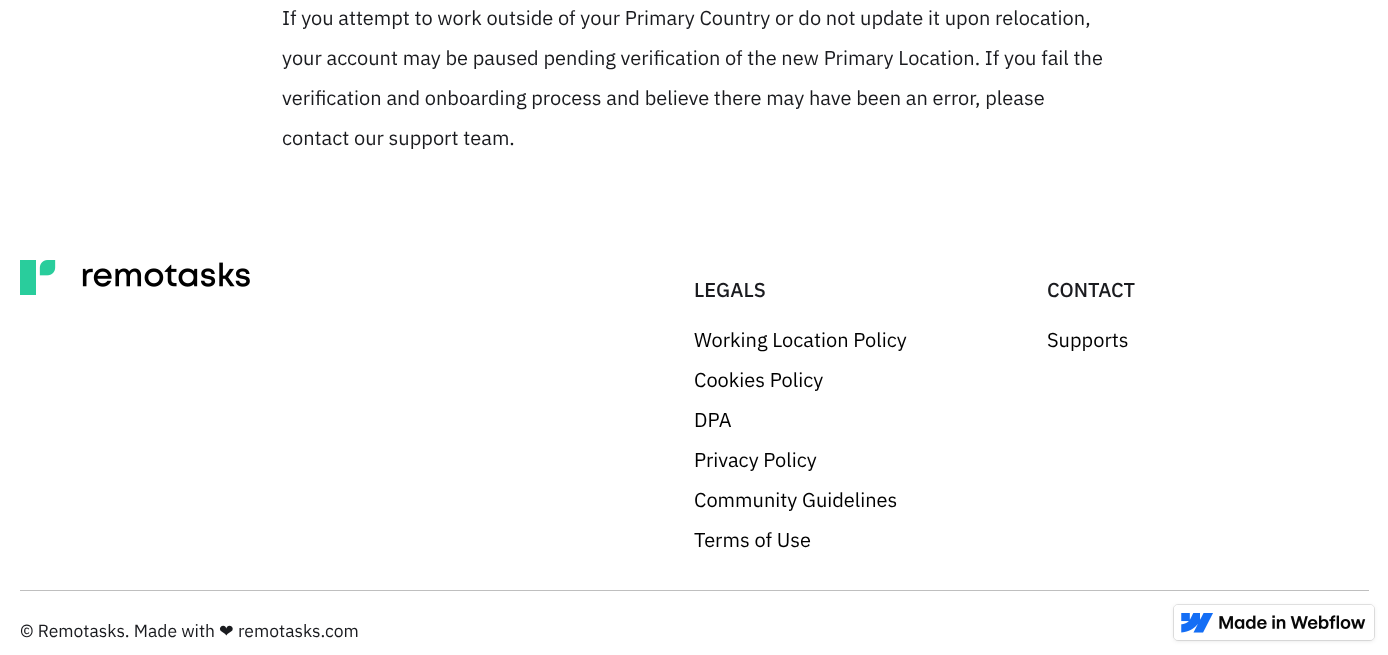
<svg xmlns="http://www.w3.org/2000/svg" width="1388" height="655">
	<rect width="100%" height="100%" fill="#FFFFFF" />
	<g font-family="IBM Plex Sans" font-size="20" fill="#1A1B1F">
		<text x="282" y="25">If you attempt to work outside of your Primary Country or do not update it upon relocation,</text>
		<text x="282" y="65">your account may be paused pending verification of the new Primary Location. If you fail the</text>
		<text x="282" y="105">verification and onboarding process and believe there may have been an error, please</text>
		<text x="282" y="145">contact our support team.</text>
	</g>
	<image x="20" y="260" width="230" height="35" href="assets/img1.png" />
	<text x="694" y="297" font-family="IBM Plex Sans" font-size="20" font-weight="500" fill="#1A1B1F">LEGALS</text>
	<g font-family="IBM Plex Sans" font-size="20" fill="#000000">
		<text x="694" y="347">Working Location Policy</text>
		<text x="694" y="387">Cookies Policy</text>
		<text x="694" y="427">DPA</text>
		<text x="694" y="467">Privacy Policy</text>
		<text x="694" y="507">Community Guidelines</text>
		<text x="694" y="547">Terms of Use</text>
	</g>
	<text x="1047" y="297" font-family="IBM Plex Sans" font-size="20" font-weight="500" fill="#1A1B1F">CONTACT</text>
	<text x="1047" y="347" font-family="IBM Plex Sans" font-size="20" fill="#000000">Supports</text>
	<rect x="20" y="590" width="1349" height="1" fill="#BFBFBF" />
	<text x="20" y="637" font-family="IBM Plex Sans" font-size="17.5" fill="#1A1B1F">© Remotasks. Made with</text>
	<text x="219" y="637" font-family="DejaVu Sans" font-size="17.5" fill="#1A1B1F">❤︎</text>
	<text x="238" y="637" font-family="IBM Plex Sans" font-size="17.5" fill="#1A1B1F">remotasks.com</text>
	<rect x="1174" y="606" width="200" height="35" rx="4" fill="#000000" fill-opacity="0.1" filter="blur(2px)" />
	<rect x="1173.5" y="604.5" width="201" height="36" rx="4.5" fill="none" stroke="#000000" stroke-opacity="0.1" />
	<rect x="1174" y="605" width="200" height="35" rx="4" fill="#FFFFFF" />
	<image x="1181" y="613" width="32" height="20" href="assets/img2.png" />
	<image x="1219" y="615" width="147" height="14" href="assets/img3.png" />
</svg>
